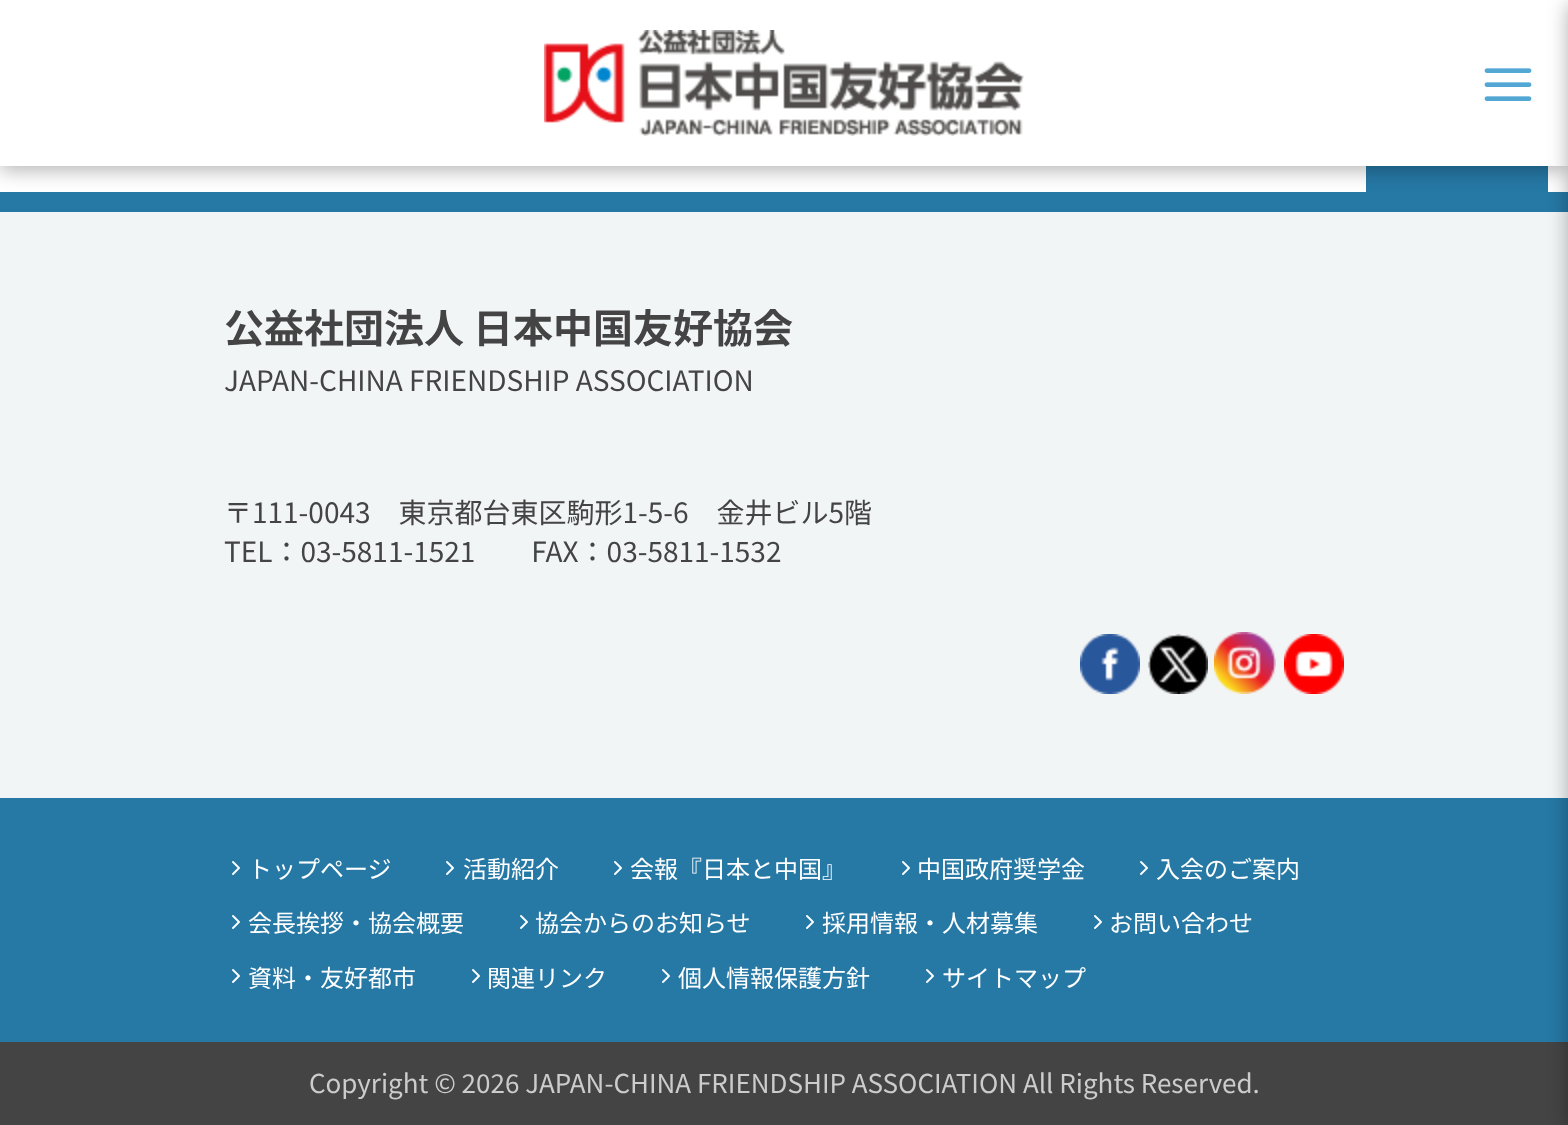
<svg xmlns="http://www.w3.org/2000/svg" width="1568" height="1125">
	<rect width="100%" height="100%" fill="#FFFFFF" />
	<rect x="1366" y="166" width="182" height="26" fill="#2678A5" />
	<rect x="0" y="192" width="1568" height="20" fill="#2678A5" />
	<rect x="0" y="4" width="1568" height="166" fill="#000000" fill-opacity="0.3" filter="blur(10px)" />
	<rect x="0" y="0" width="1568" height="166" fill="#FFFFFF" />
	<image x="544" y="30" width="480" height="106" href="assets/img1.png" />
	<image x="1484" y="68" width="48" height="33" href="assets/img2.png" />
	<rect x="0" y="212" width="1568" height="586" fill="#F2F5F6" />
	<rect x="0" y="798" width="1568" height="244" fill="#2678A5" />
	<rect x="0" y="1042" width="1568" height="83" fill="#444444" />
	<rect x="1568" y="4" width="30" height="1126" fill="#000000" fill-opacity="0.3" filter="blur(10px)" />
	<text x="224" y="343" font-family="Noto Sans JP" font-size="40" font-weight="700" fill="#444444">公益社団法人 日本中国友好協会</text>
	<g font-family="Noto Sans JP" font-size="28" fill="#444444">
		<text x="224" y="391">JAPAN-CHINA FRIENDSHIP ASSOCIATION</text>
		<text x="224" y="523">〒111-0043　東京都台東区駒形1-5-6　金井ビル5階</text>
		<text x="224" y="562">TEL：03-5811-1521　　FAX：03-5811-1532</text>
	</g>
	<image x="1080" y="634" width="60" height="60" href="assets/img3.png" />
	<image x="1148" y="634" width="60" height="60" href="assets/img4.png" />
	<image x="1214" y="632" width="62" height="62" href="assets/img5.png" />
	<image x="1284" y="634" width="60" height="60" href="assets/img6.png" />
	<image x="232" y="861" width="8" height="14" href="assets/img7.png" />
	<text x="248" y="878" font-family="Noto Sans JP" font-size="24" fill="#FFFFFF">トップページ</text>
	<image x="446" y="861" width="8" height="14" href="assets/img7.png" />
	<text x="463" y="878" font-family="Noto Sans JP" font-size="24" fill="#FFFFFF">活動紹介</text>
	<image x="614" y="861" width="8" height="14" href="assets/img7.png" />
	<text x="630" y="878" font-family="Noto Sans JP" font-size="24" fill="#FFFFFF">会報『日本と中国』</text>
	<image x="902" y="861" width="8" height="14" href="assets/img7.png" />
	<text x="917" y="878" font-family="Noto Sans JP" font-size="24" fill="#FFFFFF">中国政府奨学金</text>
	<image x="1140" y="861" width="8" height="14" href="assets/img7.png" />
	<text x="1156" y="878" font-family="Noto Sans JP" font-size="24" fill="#FFFFFF">入会のご案内</text>
	<image x="232" y="915" width="8" height="14" href="assets/img7.png" />
	<text x="248" y="932" font-family="Noto Sans JP" font-size="24" fill="#FFFFFF">会長挨拶・協会概要</text>
	<image x="520" y="915" width="8" height="14" href="assets/img7.png" />
	<text x="535" y="932" font-family="Noto Sans JP" font-size="24" fill="#FFFFFF">協会からのお知らせ</text>
	<image x="806" y="915" width="8" height="14" href="assets/img7.png" />
	<text x="822" y="932" font-family="Noto Sans JP" font-size="24" fill="#FFFFFF">採用情報・人材募集</text>
	<image x="1094" y="915" width="8" height="14" href="assets/img7.png" />
	<text x="1109" y="932" font-family="Noto Sans JP" font-size="24" fill="#FFFFFF">お問い合わせ</text>
	<image x="232" y="969" width="8" height="14" href="assets/img7.png" />
	<text x="248" y="987" font-family="Noto Sans JP" font-size="24" fill="#FFFFFF">資料・友好都市</text>
	<image x="472" y="969" width="8" height="14" href="assets/img7.png" />
	<text x="487" y="987" font-family="Noto Sans JP" font-size="24" fill="#FFFFFF">関連リンク</text>
	<image x="662" y="969" width="8" height="14" href="assets/img7.png" />
	<text x="678" y="987" font-family="Noto Sans JP" font-size="24" fill="#FFFFFF">個人情報保護方針</text>
	<image x="926" y="969" width="8" height="14" href="assets/img7.png" />
	<text x="942" y="987" font-family="Noto Sans JP" font-size="24" fill="#FFFFFF">サイトマップ</text>
	<text x="309" y="1093" font-family="Noto Sans JP" font-size="26" fill="#CCCCCC">Copyright © 2026 JAPAN-CHINA FRIENDSHIP ASSOCIATION All Rights Reserved.</text>
</svg>
